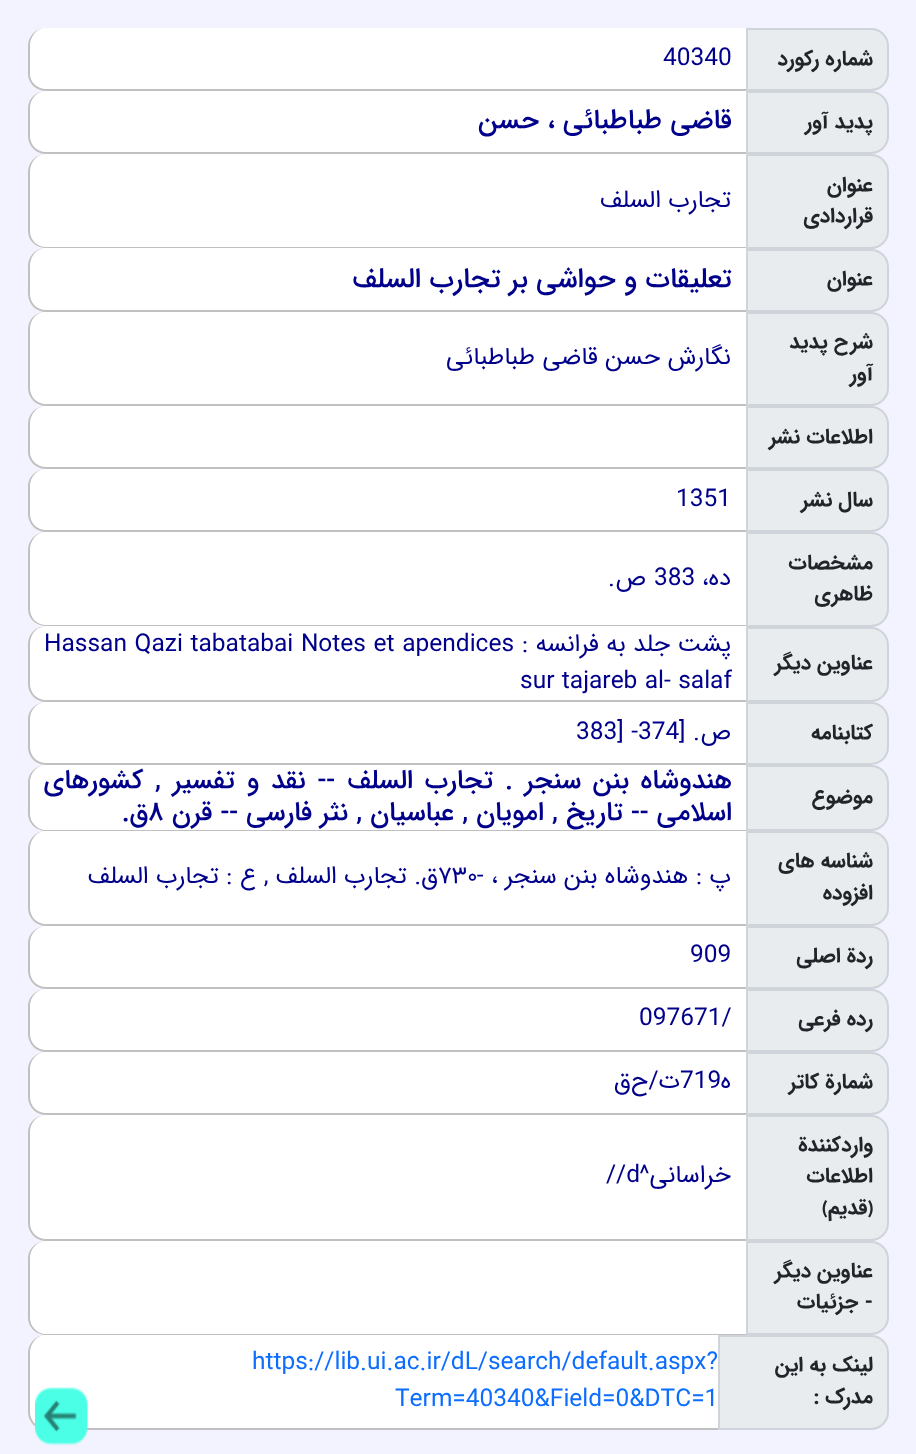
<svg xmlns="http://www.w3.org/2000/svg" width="916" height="1454">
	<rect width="100%" height="100%" fill="#F3F3FF" />
	<path d="M747 29H871C880.5 29 888 36.5 888 46V73C888 82.5 880.5 90 871 90H747Z" fill="#E9ECEF" stroke="#CED4DA" stroke-width="2" />
	<text x="873" y="65" font-family="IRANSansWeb" font-size="21" font-weight="700" direction="rtl" fill="#212529">شماره ركورد</text>
	<path d="M46 28H746V91H46C36 91 28 83 28 73V46C28 36 36 28 46 28Z" fill="#FFFFFF" />
	<path d="M46 28H746V91H46C36 91 28 83 28 74V46C28 36 36 28 46 28ZM46 28H746V89H46C37 89 30 82 30 74V46C30 36 37 28 46 28Z" fill="#C0C0C0" fill-rule="evenodd" />
	<text x="663" y="65" font-family="IRANSansWeb" font-size="24.5" fill="#00008B">40340</text>
	<path d="M747 92H871C880.5 92 888 99.5 888 109V136C888 145.5 880.5 153 871 153H747Z" fill="#E9ECEF" stroke="#CED4DA" stroke-width="2" />
	<text x="873" y="128" font-family="IRANSansWeb" font-size="21" font-weight="700" direction="rtl" fill="#212529">پديد آور</text>
	<path d="M46 91H746V154H46C36 154 28 146 28 136V109C28 99 36 91 46 91Z" fill="#FFFFFF" />
	<path d="M46 91H746V154H46C36 154 28 146 28 136V108C28 99 36 91 46 91ZM46 91H746V152H46C37 152 30 145 30 136V108C30 99 37 91 46 91Z" fill="#C0C0C0" fill-rule="evenodd" />
	<text x="732" y="128" font-family="IRANSansWeb" font-size="27.25" font-weight="500" direction="rtl" fill="#00008B">ق‍اض‍ي‌ طب‍اطب‍ائ‍ي‌ ، ح‍س‍ن‌</text>
	<path d="M747 155H871C880.5 155 888 162.5 888 172V231C888 240.5 880.5 248 871 248H747Z" fill="#E9ECEF" stroke="#CED4DA" stroke-width="2" />
	<g font-family="IRANSansWeb" font-size="21" font-weight="700" direction="rtl" fill="#212529">
		<text x="873" y="191">عنوان</text>
		<text x="873" y="222">قراردادي</text>
	</g>
	<path d="M46 154H746V249H46C36 249 28 241 28 231V172C28 162 36 154 46 154Z" fill="#FFFFFF" />
	<path d="M46 154H746V248H46C36 248 28 241 28 231V172C28 162 36 154 46 154ZM46 154H746V247H46C37 247 30 240 30 231V172C30 162 37 154 46 154Z" fill="#C0C0C0" fill-rule="evenodd" />
	<text x="731" y="207" font-family="IRANSansWeb" font-size="24.5" direction="rtl" fill="#00008B">تجارب السلف</text>
	<path d="M747 250H871C880.5 250 888 257.5 888 267V294C888 303.5 880.5 311 871 311H747Z" fill="#E9ECEF" stroke="#CED4DA" stroke-width="2" />
	<text x="873" y="285" font-family="IRANSansWeb" font-size="21" font-weight="700" direction="rtl" fill="#212529">عنوان</text>
	<path d="M46 249H746V312H46C36 312 28 304 28 294V267C28 257 36 249 46 249Z" fill="#FFFFFF" />
	<path d="M46 248H746V312H46C36 312 28 304 28 294V266C28 256 36 248 46 248ZM46 248H746V310H46C37 310 30 303 30 294V266C30 256 37 248 46 248Z" fill="#C0C0C0" fill-rule="evenodd" />
	<text x="732" y="287" font-family="IRANSansWeb" font-size="27.9" font-weight="500" direction="rtl" fill="#00008B">تعليقات و حواشي بر تجارب السلف</text>
	<path d="M747 313H871C880.5 313 888 320.5 888 330V388C888 397.5 880.5 405 871 405H747Z" fill="#E9ECEF" stroke="#CED4DA" stroke-width="2" />
	<g font-family="IRANSansWeb" font-size="21" font-weight="700" direction="rtl" fill="#212529">
		<text x="873" y="348">شرح پديد</text>
		<text x="873" y="380">آور</text>
	</g>
	<path d="M46 312H746V406H46C36 406 28 398 28 388V330C28 320 36 312 46 312Z" fill="#FFFFFF" />
	<path d="M46 312H746V406H46C36 406 28 398 28 388V329C28 319 36 312 46 312ZM46 312H746V404H46C37 404 30 397 30 388V329C30 319 37 312 46 312Z" fill="#C0C0C0" fill-rule="evenodd" />
	<text x="731" y="364" font-family="IRANSansWeb" font-size="24.5" direction="rtl" fill="#00008B">نگارش حسن قاضي طباطبائي</text>
	<path d="M747 407H871C880.5 407 888 414.5 888 424V451C888 460.5 880.5 468 871 468H747Z" fill="#E9ECEF" stroke="#CED4DA" stroke-width="2" />
	<text x="873" y="443" font-family="IRANSansWeb" font-size="21" font-weight="700" direction="rtl" fill="#212529">اطلاعات نشر</text>
	<path d="M46 406H746V469H46C36 469 28 461 28 451V424C28 414 36 406 46 406Z" fill="#FFFFFF" />
	<path d="M46 406H746V469H46C36 469 28 461 28 452V424C28 414 36 406 46 406ZM46 406H746V467H46C37 467 30 460 30 452V424C30 414 37 406 46 406Z" fill="#C0C0C0" fill-rule="evenodd" />
	<path d="M747 470H871C880.5 470 888 477.5 888 487V514C888 523.5 880.5 531 871 531H747Z" fill="#E9ECEF" stroke="#CED4DA" stroke-width="2" />
	<text x="873" y="506" font-family="IRANSansWeb" font-size="21" font-weight="700" direction="rtl" fill="#212529">سال نشر</text>
	<path d="M46 469H746V532H46C36 532 28 524 28 514V487C28 477 36 469 46 469Z" fill="#FFFFFF" />
	<path d="M46 469H746V532H46C36 532 28 524 28 514V486C28 477 36 469 46 469ZM46 469H746V530H46C37 530 30 523 30 514V486C30 477 37 469 46 469Z" fill="#C0C0C0" fill-rule="evenodd" />
	<text x="676" y="506" font-family="IRANSansWeb" font-size="24.5" fill="#00008B">1351</text>
	<path d="M747 533H871C880.5 533 888 540.5 888 550V609C888 618.5 880.5 626 871 626H747Z" fill="#E9ECEF" stroke="#CED4DA" stroke-width="2" />
	<g font-family="IRANSansWeb" font-size="21" font-weight="700" direction="rtl" fill="#212529">
		<text x="873" y="569">مشخصات</text>
		<text x="873" y="600">ظاهري</text>
	</g>
	<path d="M46 532H746V627H46C36 627 28 619 28 609V550C28 540 36 532 46 532Z" fill="#FFFFFF" />
	<path d="M46 532H746V626H46C36 626 28 619 28 609V550C28 540 36 532 46 532ZM46 532H746V625H46C37 625 30 618 30 609V550C30 540 37 532 46 532Z" fill="#C0C0C0" fill-rule="evenodd" />
	<text x="731" y="585" font-family="IRANSansWeb" font-size="24.5" direction="rtl" fill="#00008B">ده،</text>
	<text x="654" y="585" font-family="IRANSansWeb" font-size="24.5" fill="#00008B">383</text>
	<text x="646" y="585" font-family="IRANSansWeb" font-size="24.5" direction="rtl" fill="#00008B">ص.</text>
	<path d="M747 628H871C880.5 628 888 635.5 888 645V684C888 693.5 880.5 701 871 701H747Z" fill="#E9ECEF" stroke="#CED4DA" stroke-width="2" />
	<text x="873" y="669" font-family="IRANSansWeb" font-size="21" font-weight="700" direction="rtl" fill="#212529">عناوين ديگر</text>
	<path d="M46 627H746V702H46C36 702 28 694 28 684V645C28 635 36 627 46 627Z" fill="#FFFFFF" />
	<path d="M46 626H746V702H46C36 702 28 694 28 684V644C28 634 36 626 46 626ZM46 626H746V700H46C37 700 30 693 30 684V644C30 634 37 626 46 626Z" fill="#C0C0C0" fill-rule="evenodd" />
	<text x="731" y="651" font-family="IRANSansWeb" font-size="24.5" direction="rtl" fill="#00008B">پشت جلد به فرانسه :</text>
	<g font-family="IRANSansWeb" font-size="24.5" fill="#00008B">
		<text x="44" y="651" word-spacing="0.25">Hassan Qazi tabatabai Notes et apendices</text>
		<text x="520" y="688">sur tajareb al- salaf</text>
	</g>
	<path d="M747 703H871C880.5 703 888 710.5 888 720V747C888 756.5 880.5 764 871 764H747Z" fill="#E9ECEF" stroke="#CED4DA" stroke-width="2" />
	<text x="873" y="739" font-family="IRANSansWeb" font-size="21" font-weight="700" direction="rtl" fill="#212529">كتابنامه</text>
	<path d="M46 702H746V765H46C36 765 28 757 28 747V720C28 710 36 702 46 702Z" fill="#FFFFFF" />
	<path d="M46 702H746V765H46C36 765 28 757 28 747V719C28 710 36 702 46 702ZM46 702H746V763H46C37 763 30 756 30 747V719C30 710 37 702 46 702Z" fill="#C0C0C0" fill-rule="evenodd" />
	<text x="576" y="739" font-family="IRANSansWeb" font-size="24.5" fill="#00008B">383] -374</text>
	<text x="731" y="739" font-family="IRANSansWeb" font-size="24.5" direction="rtl" fill="#00008B">ص. [</text>
	<path d="M747 766H871C880.5 766 888 773.5 888 783V813C888 822.5 880.5 830 871 830H747Z" fill="#E9ECEF" stroke="#CED4DA" stroke-width="2" />
	<text x="873" y="803" font-family="IRANSansWeb" font-size="21" font-weight="700" direction="rtl" fill="#212529">موضوع</text>
	<path d="M46 765H746V831H46C36 831 28 823 28 813V783C28 773 36 765 46 765Z" fill="#FFFFFF" />
	<path d="M46 765H746V831H46C36 831 28 823 28 814V782C28 773 36 765 46 765ZM46 765H746V830H46C37 830 30 822 30 814V782C30 773 37 765 46 765Z" fill="#C0C0C0" fill-rule="evenodd" />
	<g font-family="IRANSansWeb" font-size="26.75" font-weight="500" direction="rtl" fill="#00008B">
		<text x="732" y="788" word-spacing="3.6">هندوشاه بنن سنجر . تجارب السلف -- نقد و تفسير , كشورهاي</text>
		<text x="732" y="820">اسلامي -- تاريخ , امويان , عباسيان , نثر فارسي -- قرن</text>
	</g>
	<text x="148" y="820" font-family="IRANSansWeb" font-size="26.75" font-weight="500" fill="#00008B">۸</text>
	<text x="148" y="820" font-family="IRANSansWeb" font-size="26.75" font-weight="500" direction="rtl" fill="#00008B">ق.</text>
	<path d="M747 832H871C880.5 832 888 839.5 888 849V908C888 917.5 880.5 925 871 925H747Z" fill="#E9ECEF" stroke="#CED4DA" stroke-width="2" />
	<g font-family="IRANSansWeb" font-size="21" font-weight="700" direction="rtl" fill="#212529">
		<text x="873" y="867">شناسه هاي</text>
		<text x="873" y="899">افزوده</text>
	</g>
	<path d="M46 831H746V926H46C36 926 28 918 28 908V849C28 839 36 831 46 831Z" fill="#FFFFFF" />
	<path d="M46 831H746V926H46C36 926 28 918 28 908V849C28 839 36 831 46 831ZM46 831H746V924H46C37 924 30 917 30 908V849C30 839 37 831 46 831Z" fill="#C0C0C0" fill-rule="evenodd" />
	<text x="731" y="883" font-family="IRANSansWeb" font-size="24.5" direction="rtl" fill="#00008B">پ : هندوشاه بنن سنجر ، -</text>
	<text x="438" y="883" font-family="IRANSansWeb" font-size="24.5" fill="#00008B">۷۳۰</text>
	<text x="438" y="883" font-family="IRANSansWeb" font-size="24.5" direction="rtl" fill="#00008B">ق. تجارب السلف , ع : تجارب السلف</text>
	<path d="M747 927H871C880.5 927 888 934.5 888 944V971C888 980.5 880.5 988 871 988H747Z" fill="#E9ECEF" stroke="#CED4DA" stroke-width="2" />
	<text x="873" y="962" font-family="IRANSansWeb" font-size="21" font-weight="700" direction="rtl" fill="#212529">ردة اصلي</text>
	<path d="M46 926H746V989H46C36 989 28 981 28 971V944C28 934 36 926 46 926Z" fill="#FFFFFF" />
	<path d="M46 926H746V989H46C36 989 28 981 28 971V943C28 934 36 926 46 926ZM46 926H746V987H46C37 987 30 980 30 971V943C30 934 37 926 46 926Z" fill="#C0C0C0" fill-rule="evenodd" />
	<text x="690" y="962" font-family="IRANSansWeb" font-size="24.5" fill="#00008B">909</text>
	<path d="M747 990H871C880.5 990 888 997.5 888 1007V1034C888 1043.5 880.5 1051 871 1051H747Z" fill="#E9ECEF" stroke="#CED4DA" stroke-width="2" />
	<text x="873" y="1025" font-family="IRANSansWeb" font-size="21" font-weight="700" direction="rtl" fill="#212529">رده فرعي</text>
	<path d="M46 989H746V1052H46C36 1052 28 1044 28 1034V1007C28 997 36 989 46 989Z" fill="#FFFFFF" />
	<path d="M46 989H746V1052H46C36 1052 28 1044 28 1034V1006C28 997 36 989 46 989ZM46 989H746V1050H46C37 1050 30 1043 30 1034V1006C30 997 37 989 46 989Z" fill="#C0C0C0" fill-rule="evenodd" />
	<text x="639" y="1025" font-family="IRANSansWeb" font-size="24.5" fill="#00008B">097671/</text>
	<path d="M747 1053H871C880.5 1053 888 1060.5 888 1070V1097C888 1106.5 880.5 1114 871 1114H747Z" fill="#E9ECEF" stroke="#CED4DA" stroke-width="2" />
	<text x="873" y="1088" font-family="IRANSansWeb" font-size="21" font-weight="700" direction="rtl" fill="#212529">شمارة كاتر</text>
	<path d="M46 1052H746V1115H46C36 1115 28 1107 28 1097V1070C28 1060 36 1052 46 1052Z" fill="#FFFFFF" />
	<path d="M46 1052H746V1115H46C36 1115 28 1107 28 1097V1069C28 1060 36 1052 46 1052ZM46 1052H746V1113H46C37 1113 30 1106 30 1097V1069C30 1060 37 1052 46 1052Z" fill="#C0C0C0" fill-rule="evenodd" />
	<text x="731" y="1088" font-family="IRANSansWeb" font-size="24.5" direction="rtl" fill="#00008B">ه</text>
	<text x="680" y="1088" font-family="IRANSansWeb" font-size="24.5" fill="#00008B">719</text>
	<text x="680" y="1088" font-family="IRANSansWeb" font-size="24.5" direction="rtl" fill="#00008B">ت/ح‌ق</text>
	<path d="M747 1116H871C880.5 1116 888 1123.5 888 1133V1223C888 1232.5 880.5 1240 871 1240H747Z" fill="#E9ECEF" stroke="#CED4DA" stroke-width="2" />
	<g font-family="IRANSansWeb" font-size="21" font-weight="700" direction="rtl" fill="#212529">
		<text x="873" y="1151">واردكنندة</text>
		<text x="873" y="1182">اطلاعات</text>
		<text x="873" y="1214">﴿قديم﴾</text>
	</g>
	<path d="M46 1115H746V1241H46C36 1241 28 1233 28 1223V1133C28 1123 36 1115 46 1115Z" fill="#FFFFFF" />
	<path d="M46 1115H746V1241H46C36 1241 28 1233 28 1223V1132C28 1123 36 1115 46 1115ZM46 1115H746V1239H46C37 1239 30 1232 30 1223V1132C30 1123 37 1115 46 1115Z" fill="#C0C0C0" fill-rule="evenodd" />
	<text x="731" y="1182" font-family="IRANSansWeb" font-size="24.5" direction="rtl" fill="#00008B">خراساني^</text>
	<text x="606" y="1182" font-family="IRANSansWeb" font-size="24.5" fill="#00008B">//d</text>
	<path d="M747 1242H871C880.5 1242 888 1249.5 888 1259V1317C888 1326.5 880.5 1334 871 1334H747Z" fill="#E9ECEF" stroke="#CED4DA" stroke-width="2" />
	<g font-family="IRANSansWeb" font-size="21" font-weight="700" direction="rtl" fill="#212529">
		<text x="873" y="1277">عناوين ديگر</text>
		<text x="873" y="1308">- جزئيات</text>
	</g>
	<path d="M46 1241H746V1335H46C36 1335 28 1327 28 1317V1259C28 1249 36 1241 46 1241Z" fill="#FFFFFF" />
	<path d="M46 1241H746V1335H46C36 1335 28 1327 28 1318V1258C28 1249 36 1241 46 1241ZM46 1241H746V1334H46C37 1334 30 1326 30 1318V1258C30 1249 37 1241 46 1241Z" fill="#C0C0C0" fill-rule="evenodd" />
	<path d="M719 1336H871C880.5 1336 888 1343.5 888 1353V1412C888 1421.5 880.5 1429 871 1429H719Z" fill="#E9ECEF" stroke="#CED4DA" stroke-width="2" />
	<g font-family="IRANSansWeb" font-size="21" font-weight="700" direction="rtl" fill="#212529">
		<text x="873" y="1371">لينک به اين</text>
		<text x="873" y="1403">مدرک :</text>
	</g>
	<path d="M46 1335H718V1430H46C36 1430 28 1422 28 1412V1353C28 1343 36 1335 46 1335Z" fill="#FFFFFF" />
	<path d="M46 1335H718V1430H46C36 1430 28 1422 28 1412V1353C28 1343 36 1335 46 1335ZM46 1335H718V1428H46C37 1428 30 1421 30 1412V1353C30 1343 37 1335 46 1335Z" fill="#C0C0C0" fill-rule="evenodd" />
	<g font-family="IRANSansWeb" font-size="24.5" fill="#0D6EFD">
		<text x="252" y="1369">https://lib.ui.ac.ir/dL/search/default.aspx?</text>
		<text x="395" y="1406">Term=40340&amp;Field=0&amp;DTC=1</text>
	</g>
	<image x="35" y="1387" width="53" height="59" href="assets/img1.png" />
</svg>
